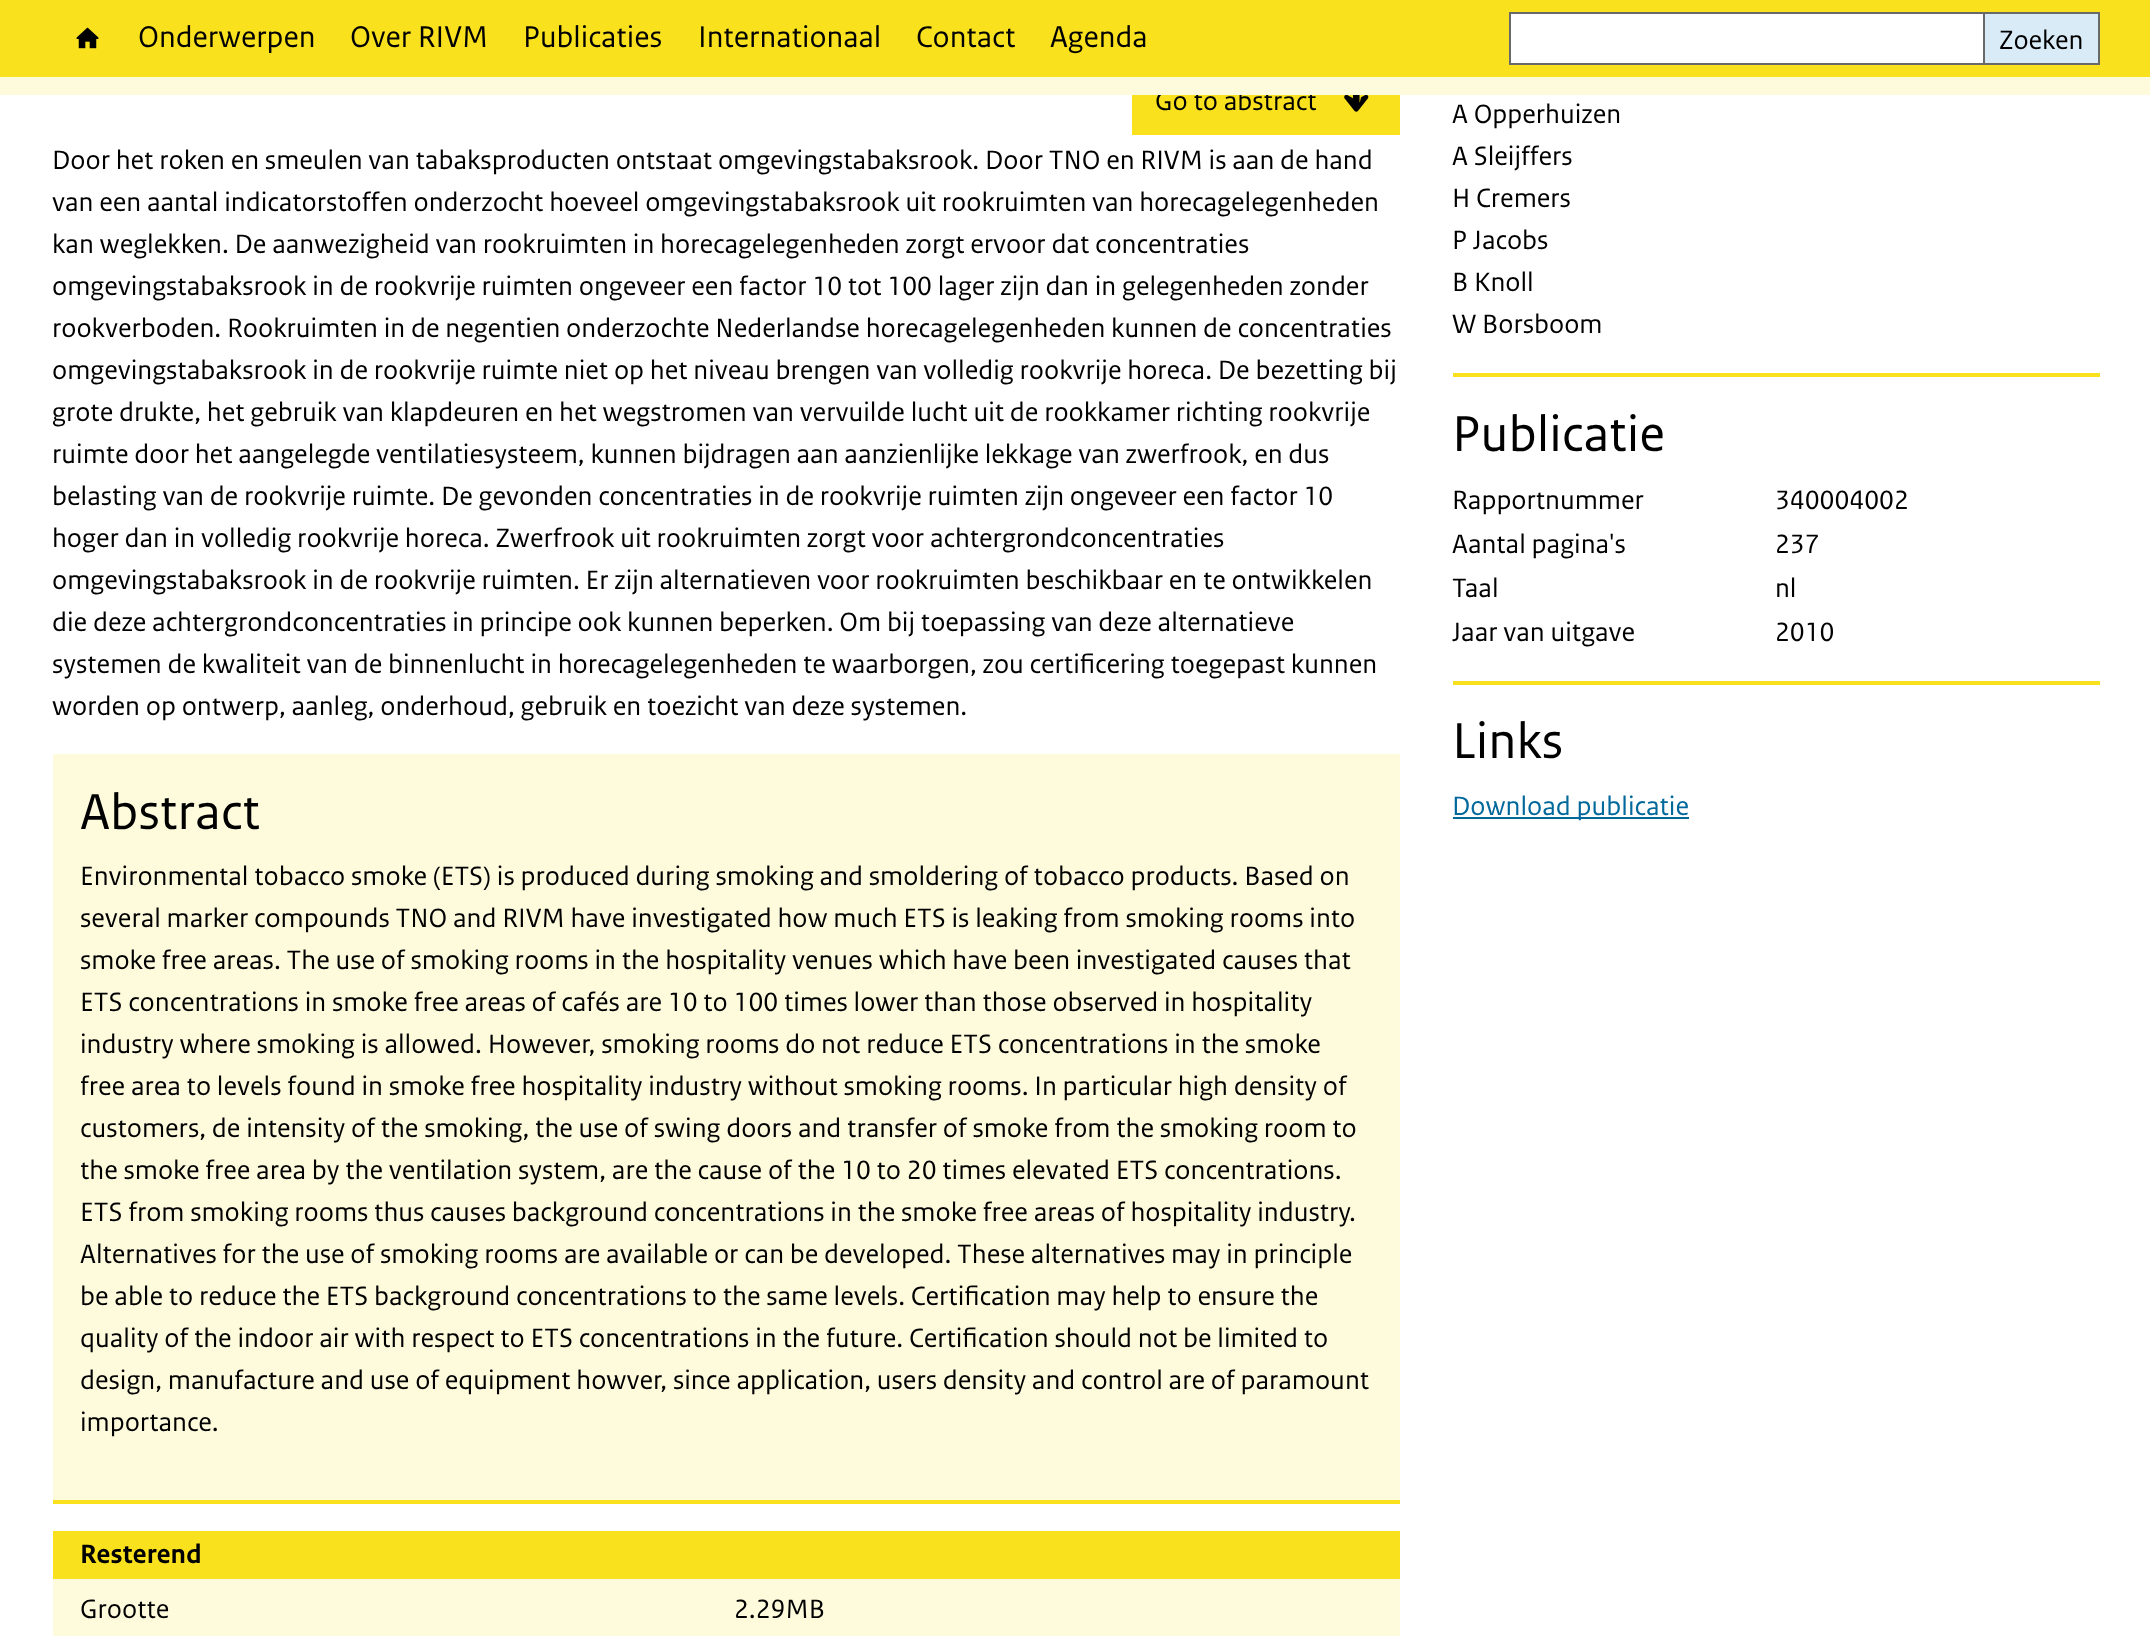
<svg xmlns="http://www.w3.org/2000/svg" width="2150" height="1636">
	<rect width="100%" height="100%" fill="#FFFFFF" />
	<rect x="0" y="0" width="2150" height="77" fill="#F9E11E" />
	<rect x="1132" y="95" width="268" height="40" fill="#F9E11E" />
	<text x="1155" y="110" font-family="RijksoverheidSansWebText" font-size="28" fill="#000000">Go to abstract</text>
	<rect x="0" y="77" width="2150" height="18" fill="#FEFBDD" />
	<image x="76" y="27" width="23" height="22" href="assets/img1.png" />
	<g font-family="RijksoverheidSansWebText" font-size="31.5" fill="#000000">
		<text x="138" y="47">Onderwerpen</text>
		<text x="350" y="47">Over RIVM</text>
		<text x="523" y="47">Publicaties</text>
		<text x="698" y="47">Internationaal</text>
		<text x="916" y="47">Contact</text>
		<text x="1050" y="47">Agenda</text>
	</g>
	<rect x="1510" y="13" width="474" height="51" fill="#FFFFFF" stroke="#696969" stroke-width="2" />
	<rect x="1985" y="14" width="113" height="49" fill="#D9EBF7" />
	<rect x="1985" y="12" width="115" height="2" fill="#696969" />
	<rect x="2098" y="12" width="2" height="53" fill="#696969" />
	<rect x="1985" y="63" width="115" height="2" fill="#696969" />
	<text x="1999" y="49" font-family="RijksoverheidSansWebText" font-size="28" fill="#000000">Zoeken</text>
	<image x="1344" y="95" width="25" height="17" href="assets/img2.png" />
	<g font-family="RijksoverheidSansWebText" font-size="28" fill="#000000">
		<text x="52" y="169">Door het roken en smeulen van tabaksproducten ontstaat omgevingstabaksrook. Door TNO en RIVM is aan de hand</text>
		<text x="52" y="211">van een aantal indicatorstoffen onderzocht hoeveel omgevingstabaksrook uit rookruimten van horecagelegenheden</text>
		<text x="52" y="253">kan weglekken. De aanwezigheid van rookruimten in horecagelegenheden zorgt ervoor dat concentraties</text>
		<text x="52" y="295">omgevingstabaksrook in de rookvrije ruimten ongeveer een factor 10 tot 100 lager zijn dan in gelegenheden zonder</text>
		<text x="52" y="337">rookverboden. Rookruimten in de negentien onderzochte Nederlandse horecagelegenheden kunnen de concentraties</text>
		<text x="52" y="379">omgevingstabaksrook in de rookvrije ruimte niet op het niveau brengen van volledig rookvrije horeca. De bezetting bij</text>
		<text x="52" y="421">grote drukte, het gebruik van klapdeuren en het wegstromen van vervuilde lucht uit de rookkamer richting rookvrije</text>
		<text x="52" y="463">ruimte door het aangelegde ventilatiesysteem, kunnen bijdragen aan aanzienlijke lekkage van zwerfrook, en dus</text>
		<text x="52" y="505">belasting van de rookvrije ruimte. De gevonden concentraties in de rookvrije ruimten zijn ongeveer een factor 10</text>
		<text x="52" y="547">hoger dan in volledig rookvrije horeca. Zwerfrook uit rookruimten zorgt voor achtergrondconcentraties</text>
		<text x="52" y="589">omgevingstabaksrook in de rookvrije ruimten. Er zijn alternatieven voor rookruimten beschikbaar en te ontwikkelen</text>
		<text x="52" y="631">die deze achtergrondconcentraties in principe ook kunnen beperken. Om bij toepassing van deze alternatieve</text>
		<text x="52" y="673">systemen de kwaliteit van de binnenlucht in horecagelegenheden te waarborgen, zou certificering toegepast kunnen</text>
		<text x="52" y="715">worden op ontwerp, aanleg, onderhoud, gebruik en toezicht van deze systemen.</text>
	</g>
	<rect x="53" y="754" width="1347" height="746" fill="#FEFBDD" />
	<rect x="53" y="1500" width="1347" height="4" fill="#F9E11E" />
	<text x="80" y="829" font-family="RijksoverheidSansWebText" font-size="53" fill="#000000">Abstract</text>
	<g font-family="RijksoverheidSansWebText" font-size="28" fill="#000000">
		<text x="80" y="885">Environmental tobacco smoke (ETS) is produced during smoking and smoldering of tobacco products. Based on</text>
		<text x="80" y="927">several marker compounds TNO and RIVM have investigated how much ETS is leaking from smoking rooms into</text>
		<text x="80" y="969">smoke free areas. The use of smoking rooms in the hospitality venues which have been investigated causes that</text>
		<text x="80" y="1011">ETS concentrations in smoke free areas of cafés are 10 to 100 times lower than those observed in hospitality</text>
		<text x="80" y="1053">industry where smoking is allowed. However, smoking rooms do not reduce ETS concentrations in the smoke</text>
		<text x="80" y="1095">free area to levels found in smoke free hospitality industry without smoking rooms. In particular high density of</text>
		<text x="80" y="1137">customers, de intensity of the smoking, the use of swing doors and transfer of smoke from the smoking room to</text>
		<text x="80" y="1179">the smoke free area by the ventilation system, are the cause of the 10 to 20 times elevated ETS concentrations.</text>
		<text x="80" y="1221">ETS from smoking rooms thus causes background concentrations in the smoke free areas of hospitality industry.</text>
		<text x="80" y="1263">Alternatives for the use of smoking rooms are available or can be developed. These alternatives may in principle</text>
		<text x="80" y="1305">be able to reduce the ETS background concentrations to the same levels. Certification may help to ensure the</text>
		<text x="80" y="1347">quality of the indoor air with respect to ETS concentrations in the future. Certification should not be limited to</text>
		<text x="80" y="1389">design, manufacture and use of equipment howver, since application, users density and control are of paramount</text>
		<text x="80" y="1431">importance.</text>
	</g>
	<rect x="53" y="1531" width="1347" height="48" fill="#F9E11E" />
	<text x="80" y="1563" font-family="RijksoverheidSansWebText" font-size="28" font-weight="700" fill="#000000">Resterend</text>
	<rect x="53" y="1579" width="1347" height="57" fill="#FEFBDD" />
	<g font-family="RijksoverheidSansWebText" font-size="28" fill="#000000">
		<text x="80" y="1618">Grootte</text>
		<text x="734" y="1618">2.29MB</text>
		<text x="1452" y="123">A Opperhuizen</text>
		<text x="1452" y="165">A Sleijffers</text>
		<text x="1452" y="207">H Cremers</text>
		<text x="1452" y="249">P Jacobs</text>
		<text x="1452" y="291">B Knoll</text>
		<text x="1452" y="333">W Borsboom</text>
	</g>
	<rect x="1453" y="373" width="647" height="4" fill="#F9E11E" />
	<text x="1452" y="451" font-family="RijksoverheidSansWebText" font-size="53" fill="#000000">Publicatie</text>
	<g font-family="RijksoverheidSansWebText" font-size="28" fill="#000000">
		<text x="1452" y="509">Rapportnummer</text>
		<text x="1775" y="509">340004002</text>
		<text x="1452" y="553">Aantal pagina's</text>
		<text x="1775" y="553">237</text>
		<text x="1452" y="597">Taal</text>
		<text x="1775" y="597">nl</text>
		<text x="1452" y="641">Jaar van uitgave</text>
		<text x="1775" y="641">2010</text>
	</g>
	<rect x="1453" y="681" width="647" height="4" fill="#F9E11E" />
	<text x="1452" y="758" font-family="RijksoverheidSansWebText" font-size="53" fill="#000000">Links</text>
	<rect x="1453" y="817" width="236" height="2" fill="#01689B" />
	<text x="1452" y="815" font-family="RijksoverheidSansWebText" font-size="28" fill="#01689B">Download publicatie</text>
</svg>
